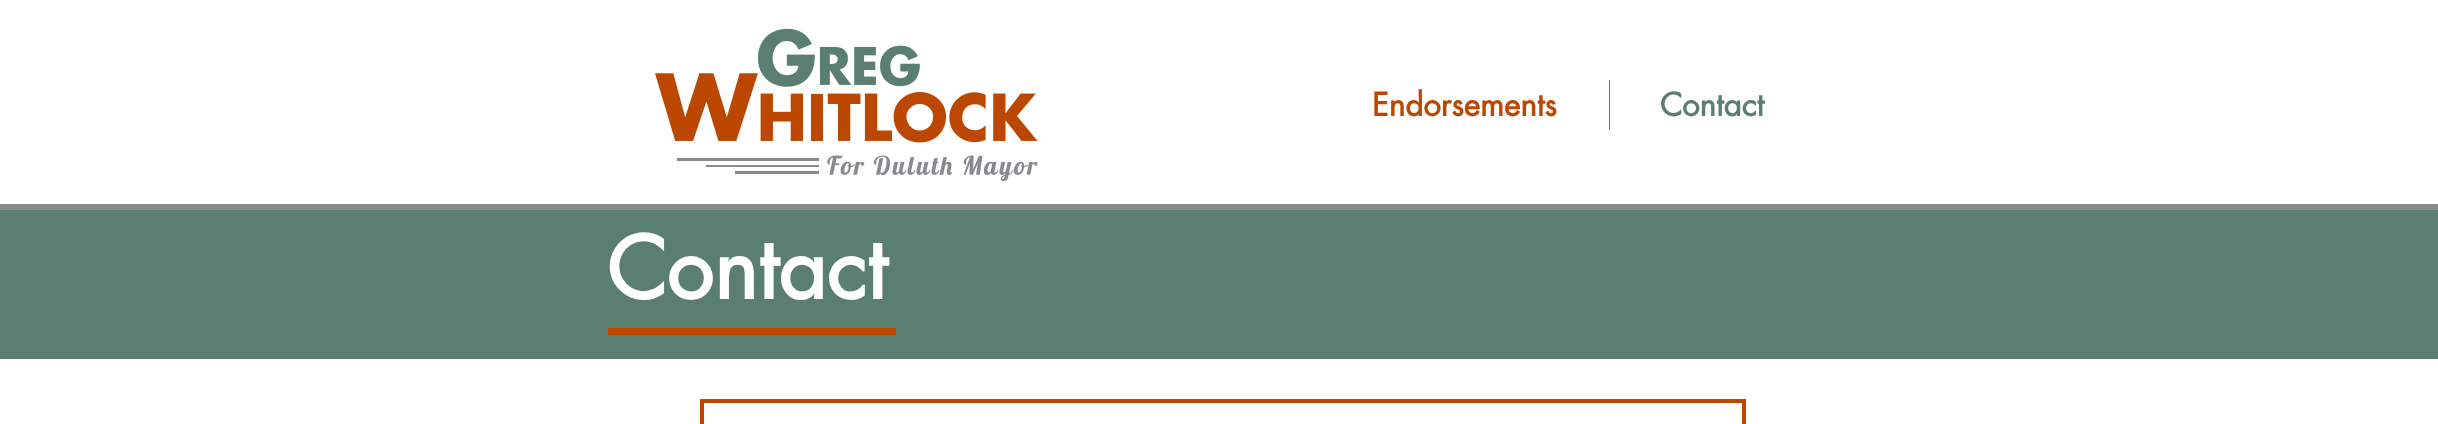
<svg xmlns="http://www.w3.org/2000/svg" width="2438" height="424">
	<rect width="100%" height="100%" fill="#FFFFFF" />
	<image x="655" y="28" width="383" height="154" href="assets/img1.png" />
	<text x="1372" y="116" font-family="futura" font-size="31.25" font-weight="700" fill="#BC4700">Endorsements</text>
	<rect x="1609" y="80" width="1" height="50" fill="#5A7F71" />
	<text x="1660" y="116" font-family="futura" font-size="31.25" font-weight="700" fill="#5A7F71">Contact</text>
	<rect x="0" y="204" width="2438" height="6" fill="#898A8D" />
	<rect x="0" y="210" width="2438" height="149" fill="#5A7F71" />
	<text x="607" y="299" font-family="futura" font-size="84" font-weight="700" fill="#FFFFFF">Contact</text>
	<rect x="608" y="328" width="288" height="7" fill="#BC4700" />
	<rect x="702" y="401" width="1042" height="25" fill="none" stroke="#BC4700" stroke-width="4" />
</svg>
